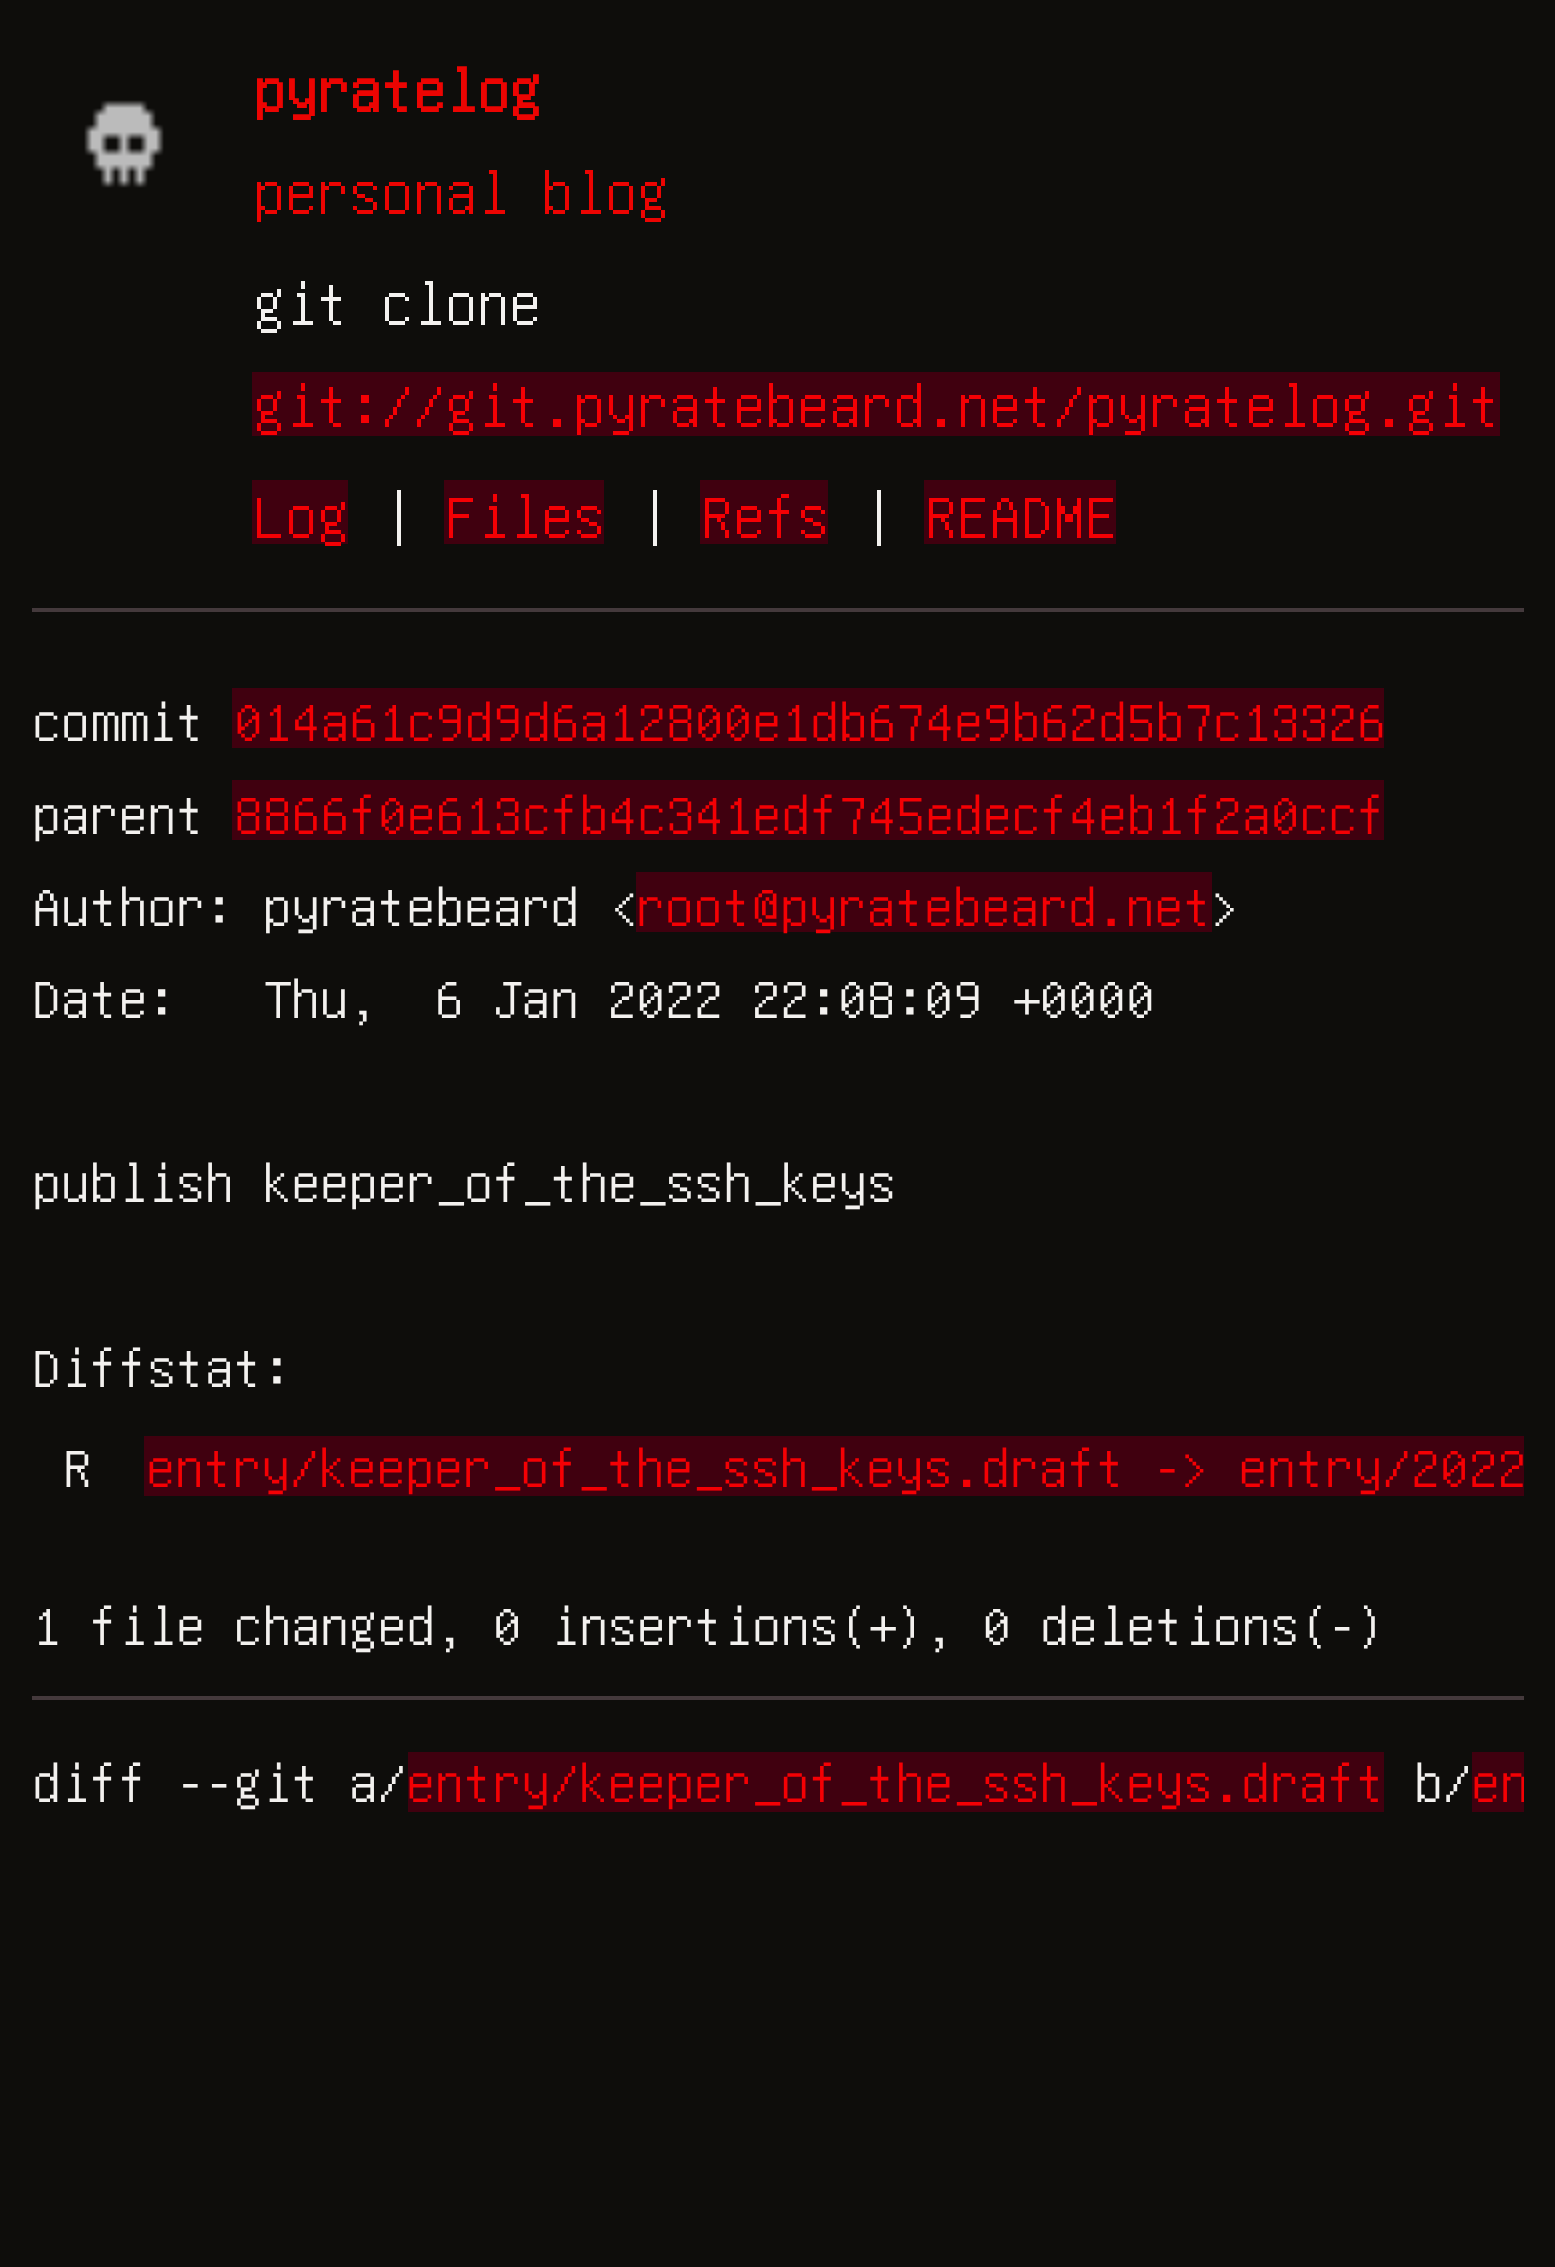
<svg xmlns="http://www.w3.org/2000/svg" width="1555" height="2267">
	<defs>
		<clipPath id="clip1"><rect x="32" y="1576" width="1492" height="252" /></clipPath>
	</defs>
	<rect width="100%" height="100%" fill="#0E0D0B" />
	<image x="84" y="100" width="80" height="88" href="assets/img1.png" />
	<text x="253" y="112" font-family="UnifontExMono" font-size="64" font-weight="700" fill="#EC0402">pyratelog</text>
	<text x="253" y="214" font-family="UnifontExMono" font-size="64" font-weight="500" fill="#EC0402">personal blog</text>
	<text x="253" y="325" font-family="UnifontExMono" font-size="64" font-weight="500" fill="#F3F1EF">git clone</text>
	<rect x="252" y="372" width="1248" height="64" fill="#40000F" />
	<text x="253" y="427" font-family="UnifontExMono" font-size="64" font-weight="500" fill="#F40004">git://git.pyratebeard.net/pyratelog.git</text>
	<rect x="252" y="480" width="96" height="64" fill="#40000F" />
	<text x="253" y="538" font-family="UnifontExMono" font-size="64" font-weight="500" fill="#F40004">Log</text>
	<text x="381" y="538" font-family="UnifontExMono" font-size="64" font-weight="500" fill="#F3F1EF">|</text>
	<rect x="444" y="480" width="160" height="64" fill="#40000F" />
	<text x="445" y="538" font-family="UnifontExMono" font-size="64" font-weight="500" fill="#F40004">Files</text>
	<text x="637" y="538" font-family="UnifontExMono" font-size="64" font-weight="500" fill="#F3F1EF">|</text>
	<rect x="700" y="480" width="128" height="64" fill="#40000F" />
	<text x="701" y="538" font-family="UnifontExMono" font-size="64" font-weight="500" fill="#F40004">Refs</text>
	<text x="861" y="538" font-family="UnifontExMono" font-size="64" font-weight="500" fill="#F3F1EF">|</text>
	<rect x="924" y="480" width="192" height="64" fill="#40000F" />
	<text x="925" y="538" font-family="UnifontExMono" font-size="64" font-weight="500" fill="#F40004">README</text>
	<rect x="32" y="608" width="1492" height="4" fill="#44393C" />
	<text x="32" y="741" font-family="UnifontExMono" font-size="57.6" font-weight="500" fill="#F3F1EF">commit</text>
	<rect x="232" y="688" width="1152" height="60" fill="#40000F" />
	<text x="234" y="741" font-family="UnifontExMono" font-size="57.6" font-weight="500" fill="#F40004">014a61c9d9d6a12800e1db674e9b62d5b7c13326</text>
	<text x="32" y="834" font-family="UnifontExMono" font-size="57.6" font-weight="500" fill="#F3F1EF">parent</text>
	<rect x="232" y="780" width="1152" height="60" fill="#40000F" />
	<text x="234" y="834" font-family="UnifontExMono" font-size="57.6" font-weight="500" fill="#F40004">8866f0e613cfb4c341edf745edecf4eb1f2a0ccf</text>
	<text x="32" y="926" font-family="UnifontExMono" font-size="57.6" font-weight="500" fill="#F3F1EF">Author: pyratebeard &lt;</text>
	<rect x="636" y="872" width="576" height="60" fill="#40000F" />
	<text x="636" y="926" font-family="UnifontExMono" font-size="57.6" font-weight="500" fill="#F40004">root@pyratebeard.net</text>
	<g font-family="UnifontExMono" font-size="57.6" font-weight="500" fill="#F3F1EF">
		<text x="1212" y="926">&gt;</text>
		<text x="32" y="1018">Date:</text>
		<text x="262" y="1018" xml:space="preserve">Thu,  6 Jan 2022 22:08:09 +0000</text>
		<text x="32" y="1202">publish keeper_of_the_ssh_keys</text>
		<text x="32" y="1387">Diffstat:</text>
		<text x="63" y="1487">R</text>
	</g>
	<rect x="144" y="1436" width="1380" height="60" fill="#40000F" />
	<text x="146" y="1487" word-spacing="-1" font-family="UnifontExMono" font-size="57.6" font-weight="500" fill="#F40004">entry/keeper_of_the_ssh_keys.draft -&gt; entry/2022</text>
	<text x="32" y="1645" font-family="UnifontExMono" font-size="57.6" font-weight="500" fill="#F3F1EF">1 file changed, 0 insertions(+), 0 deletions(-)</text>
	<rect x="32" y="1696" width="1492" height="4" fill="#44393C" />
	<text x="32" y="1802" font-family="UnifontExMono" font-size="57.6" font-weight="500" fill="#F3F1EF">diff --git a/</text>
	<rect x="408" y="1752" width="976" height="60" fill="#40000F" />
	<text x="406" y="1802" font-family="UnifontExMono" font-size="57.6" font-weight="500" fill="#F40004">entry/keeper_of_the_ssh_keys.draft</text>
	<text x="1414" y="1802" font-family="UnifontExMono" font-size="57.6" font-weight="500" fill="#F3F1EF">b/</text>
	<rect x="1472" y="1752" width="52" height="60" fill="#40000F" />
	<g clip-path="url(#clip1)">
		<text x="1471" y="1802" font-family="UnifontExMono" font-size="57.6" font-weight="500" fill="#F40004">en</text>
	</g>
</svg>
